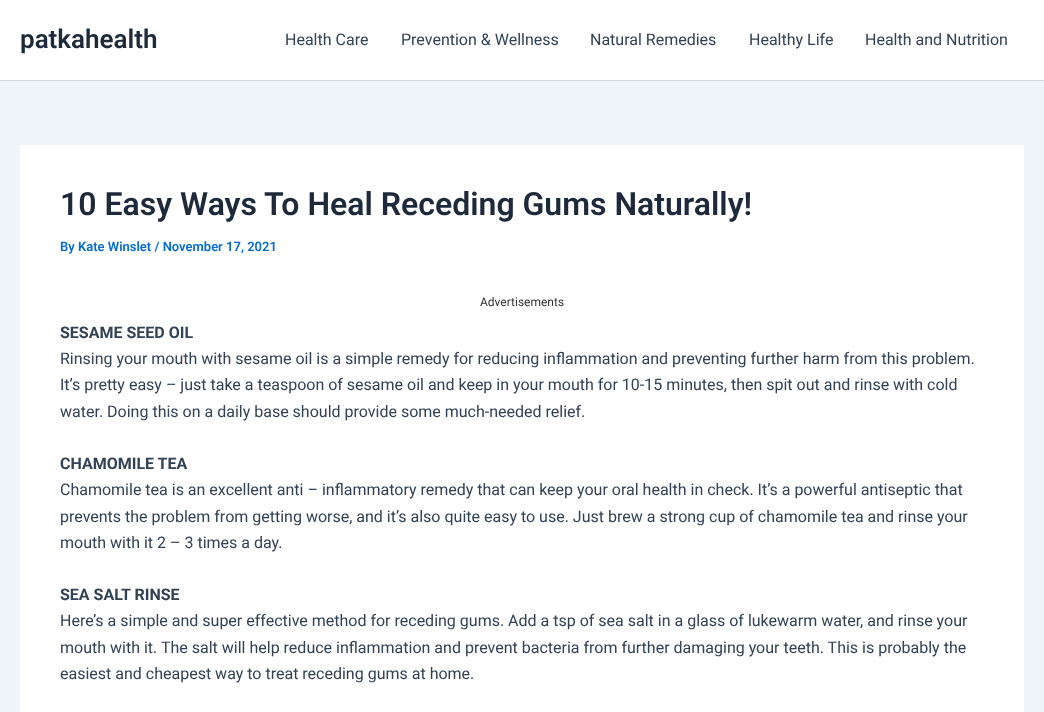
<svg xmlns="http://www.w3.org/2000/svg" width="1044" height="712">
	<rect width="100%" height="100%" fill="#F0F5FA" />
	<rect x="0" y="0" width="1044" height="80" fill="#FFFFFF" />
	<rect x="0" y="80" width="1044" height="1" fill="#D1D5DB" />
	<text x="20" y="48" font-family="Roboto" font-size="26" font-weight="600" fill="#1E293B">patkahealth</text>
	<g font-family="Roboto" font-size="16" fill="#334155">
		<text x="285" y="45">Health Care</text>
		<text x="401" y="45">Prevention &amp; Wellness</text>
		<text x="590" y="45">Natural Remedies</text>
		<text x="749" y="45">Healthy Life</text>
		<text x="865" y="45">Health and Nutrition</text>
	</g>
	<rect x="20" y="145" width="1004" height="567" fill="#FFFFFF" />
	<text x="60" y="215" font-family="Roboto" font-size="32" font-weight="600" fill="#1E293B">10 Easy Ways To Heal Receding Gums Naturally!</text>
	<text x="60" y="251" font-family="Roboto" font-size="13" font-weight="600" fill="#046BD2">By Kate Winslet / November 17, 2021</text>
	<text x="480" y="306" font-family="Roboto" font-size="12" fill="#333333">Advertisements</text>
	<text x="60" y="338" font-family="Roboto" font-size="16" font-weight="700" fill="#334155">SESAME SEED OIL</text>
	<g font-family="Roboto" font-size="16" fill="#334155">
		<text x="60" y="364">Rinsing your mouth with sesame oil is a simple remedy for reducing inflammation and preventing further harm from this problem.</text>
		<text x="60" y="390">It’s pretty easy – just take a teaspoon of sesame oil and keep in your mouth for 10-15 minutes, then spit out and rinse with cold</text>
		<text x="60" y="417">water. Doing this on a daily base should provide some much-needed relief.</text>
	</g>
	<text x="60" y="469" font-family="Roboto" font-size="16" font-weight="700" fill="#334155">CHAMOMILE TEA</text>
	<g font-family="Roboto" font-size="16" fill="#334155">
		<text x="60" y="495">Chamomile tea is an excellent anti – inflammatory remedy that can keep your oral health in check. It’s a powerful antiseptic that</text>
		<text x="60" y="522">prevents the problem from getting worse, and it’s also quite easy to use. Just brew a strong cup of chamomile tea and rinse your</text>
		<text x="60" y="548">mouth with it 2 – 3 times a day.</text>
	</g>
	<text x="60" y="600" font-family="Roboto" font-size="16" font-weight="700" fill="#334155">SEA SALT RINSE</text>
	<g font-family="Roboto" font-size="16" fill="#334155">
		<text x="60" y="626">Here’s a simple and super effective method for receding gums. Add a tsp of sea salt in a glass of lukewarm water, and rinse your</text>
		<text x="60" y="653">mouth with it. The salt will help reduce inflammation and prevent bacteria from further damaging your teeth. This is probably the</text>
		<text x="60" y="679">easiest and cheapest way to treat receding gums at home.</text>
	</g>
</svg>
